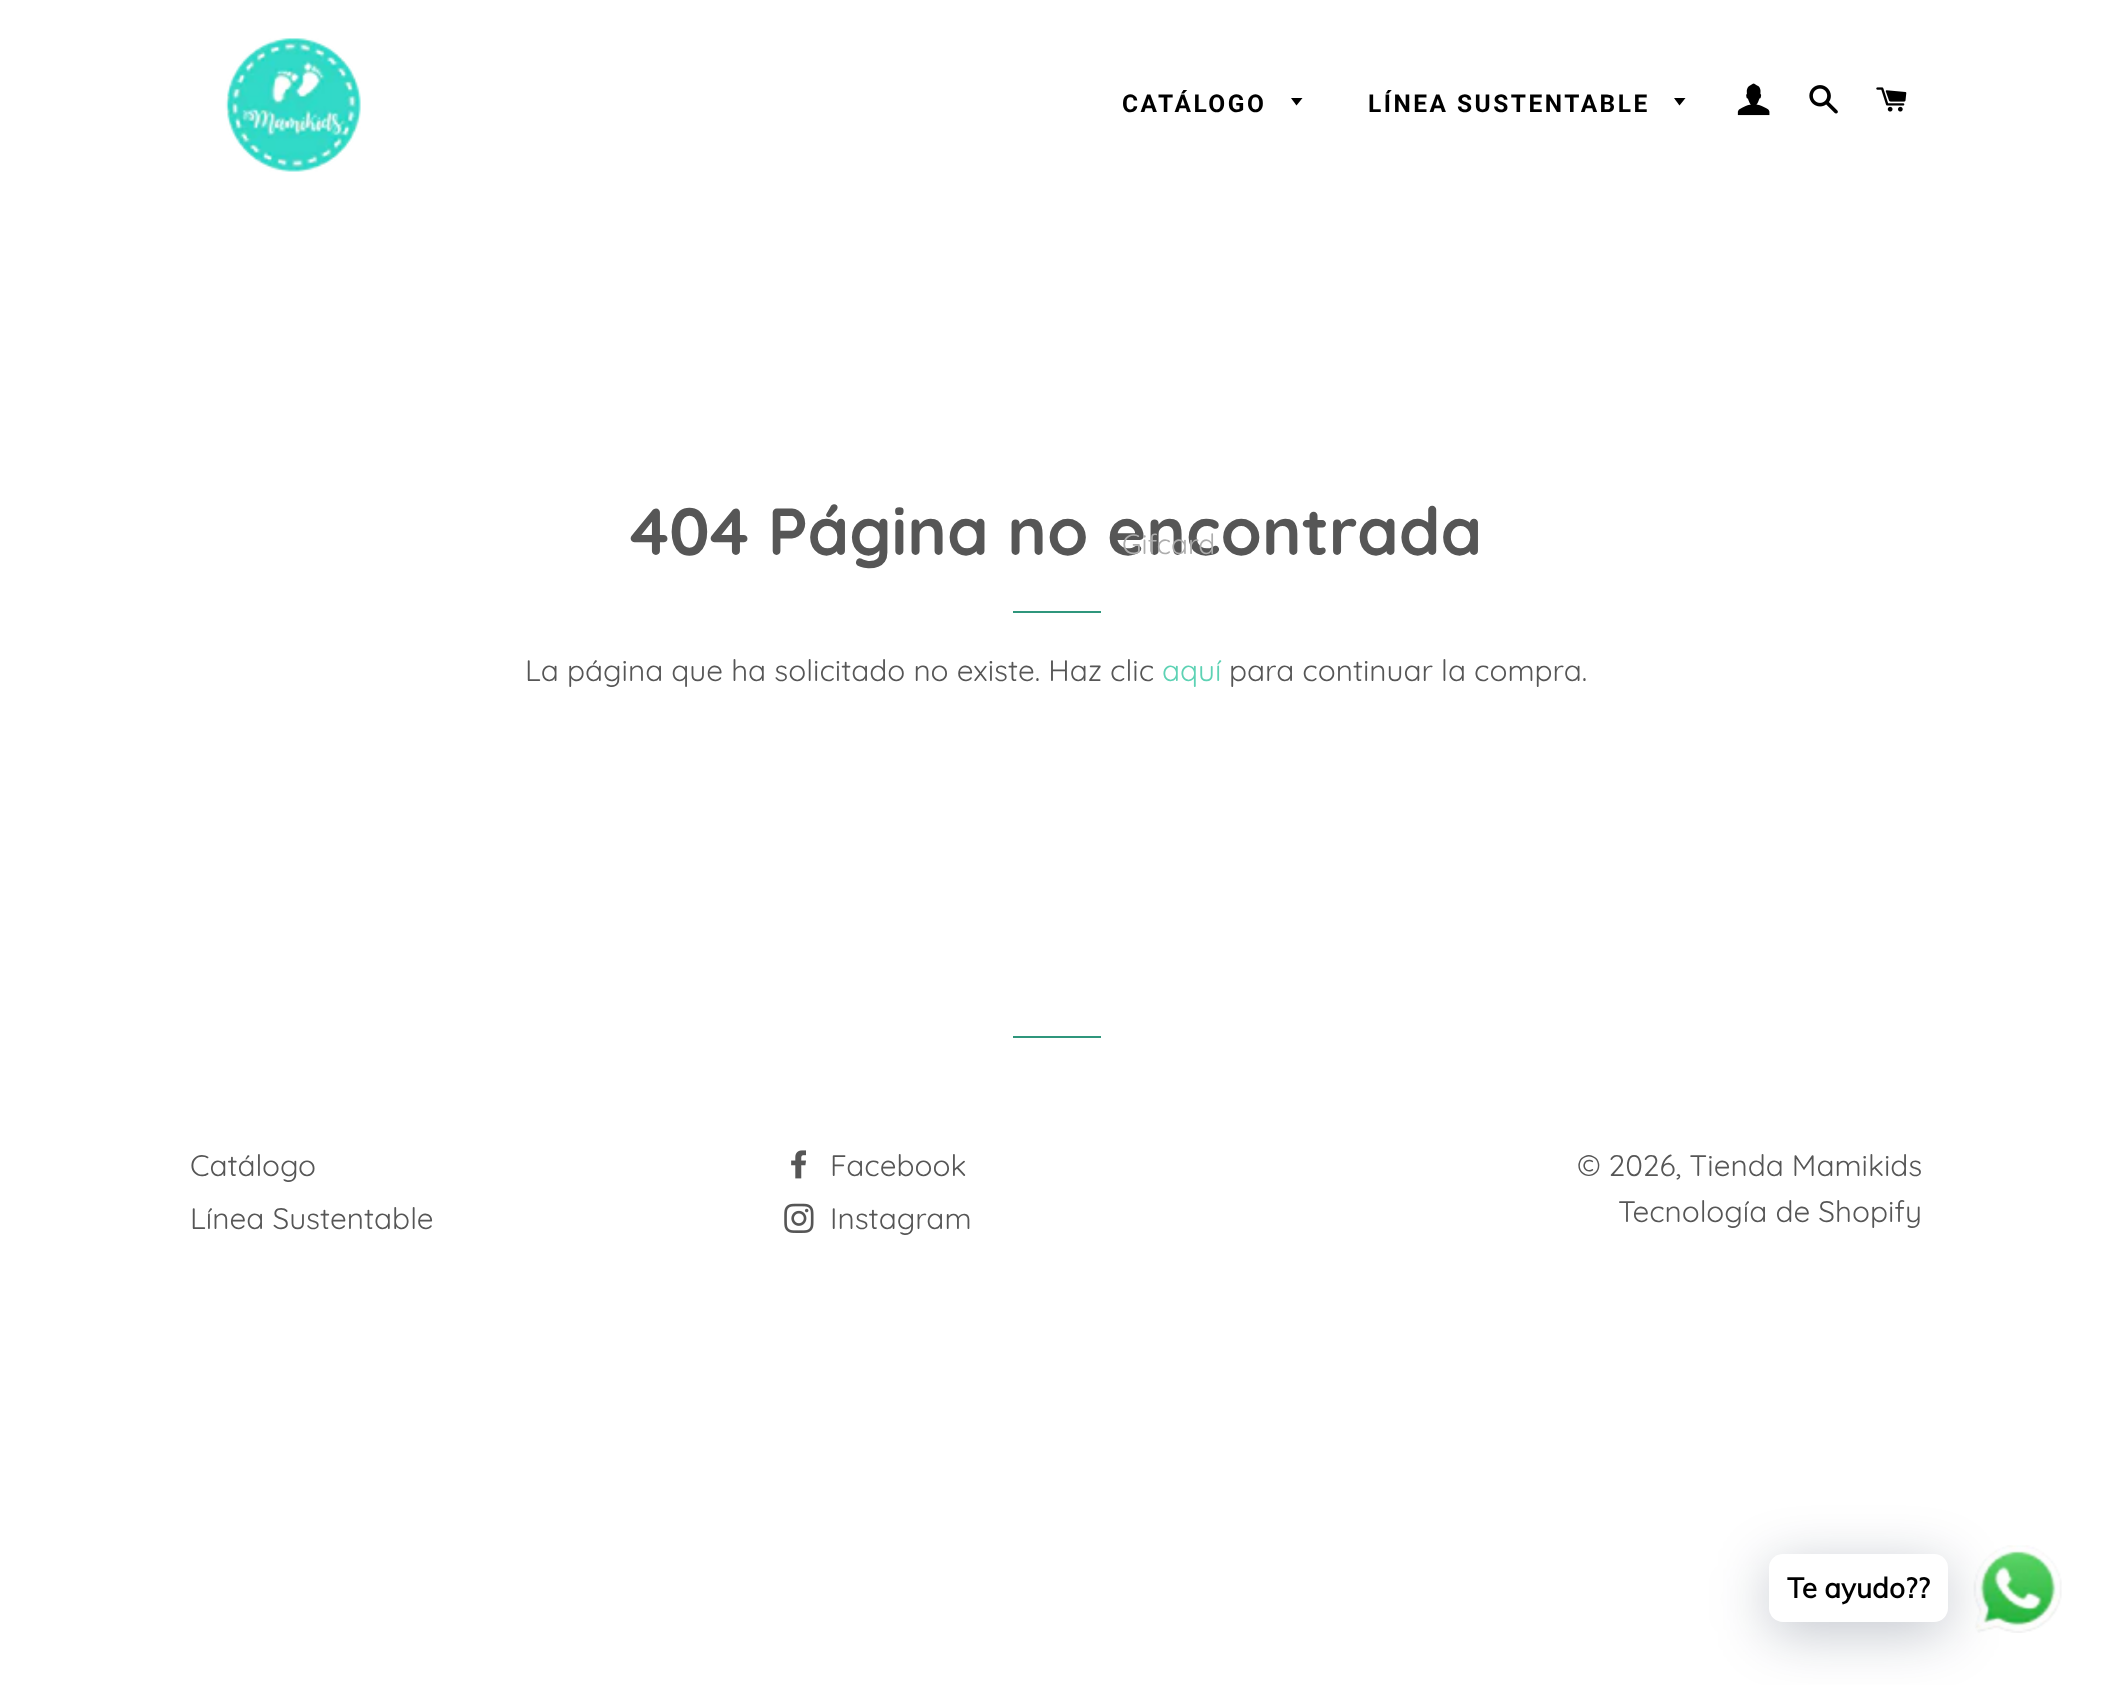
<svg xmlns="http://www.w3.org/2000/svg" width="2112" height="1685">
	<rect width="100%" height="100%" fill="#FFFFFF" />
	<image x="225" y="38" width="136" height="134" href="assets/img1.png" />
	<text x="1122" y="112" font-family="Roboto" font-size="24.5" font-weight="700" letter-spacing="2.5" fill="#000000">CATÁLOGO</text>
	<path d="M1291 98L1296.5 105.5L1302.5 98Z" fill="#000000" />
	<text x="630" y="555" font-family="Quicksand" font-size="66.5" font-weight="700" fill="#565656">404 Página no encontrada</text>
	<text x="1122" y="554" font-family="Quicksand" font-size="28" fill="#ADADAD">Gifcard</text>
	<text x="1368" y="112" font-family="Roboto" font-size="24.5" font-weight="700" letter-spacing="2.5" fill="#000000">LÍNEA SUSTENTABLE</text>
	<path d="M1674 98L1679.5 105.5L1685.5 98Z" fill="#000000" />
	<image x="1737" y="83" width="33" height="33" href="assets/img2.png" />
	<image x="1809" y="85" width="29" height="29" href="assets/img3.png" />
	<image x="1876" y="87" width="31" height="25" href="assets/img4.png" />
	<rect x="1013" y="611" width="88" height="2" fill="#2F967C" />
	<text x="525" y="681" font-family="Quicksand" font-size="29.75" fill="#565656">La página que ha solicitado no existe. Haz clic</text>
	<text x="1162" y="681" font-family="Quicksand" font-size="29.75" fill="#5DD2B4">aquí</text>
	<text x="1229" y="681" font-family="Quicksand" font-size="29.75" fill="#565656">para continuar la compra.</text>
	<rect x="1013" y="1036" width="88" height="2" fill="#2F967C" />
	<g font-family="Quicksand" font-size="29.75" fill="#565656">
		<text x="190" y="1176">Catálogo</text>
		<text x="190" y="1229">Línea Sustentable</text>
	</g>
	<image x="791" y="1150" width="15" height="29" href="assets/img5.png" />
	<text x="830" y="1176" font-family="Quicksand" font-size="29.75" fill="#565656">Facebook</text>
	<image x="784" y="1203" width="30" height="30" href="assets/img6.png" />
	<g font-family="Quicksand" font-size="29.75" fill="#565656">
		<text x="830" y="1229">Instagram</text>
		<text x="1577" y="1176">© 2026, Tienda Mamikids</text>
		<text x="1618" y="1222">Tecnología de Shopify</text>
	</g>
	<image x="1973" y="1545" width="89" height="88" href="assets/img7.png" />
	<rect x="1769" y="1565" width="179" height="68" rx="14" fill="#00122E" fill-opacity="0.24" filter="blur(28px)" />
	<rect x="1769" y="1554" width="179" height="68" rx="14" fill="#FFFFFF" />
	<text x="1787" y="1598" font-family="Muli" font-size="28" font-weight="700" fill="#000000">Te ayudo??</text>
</svg>
